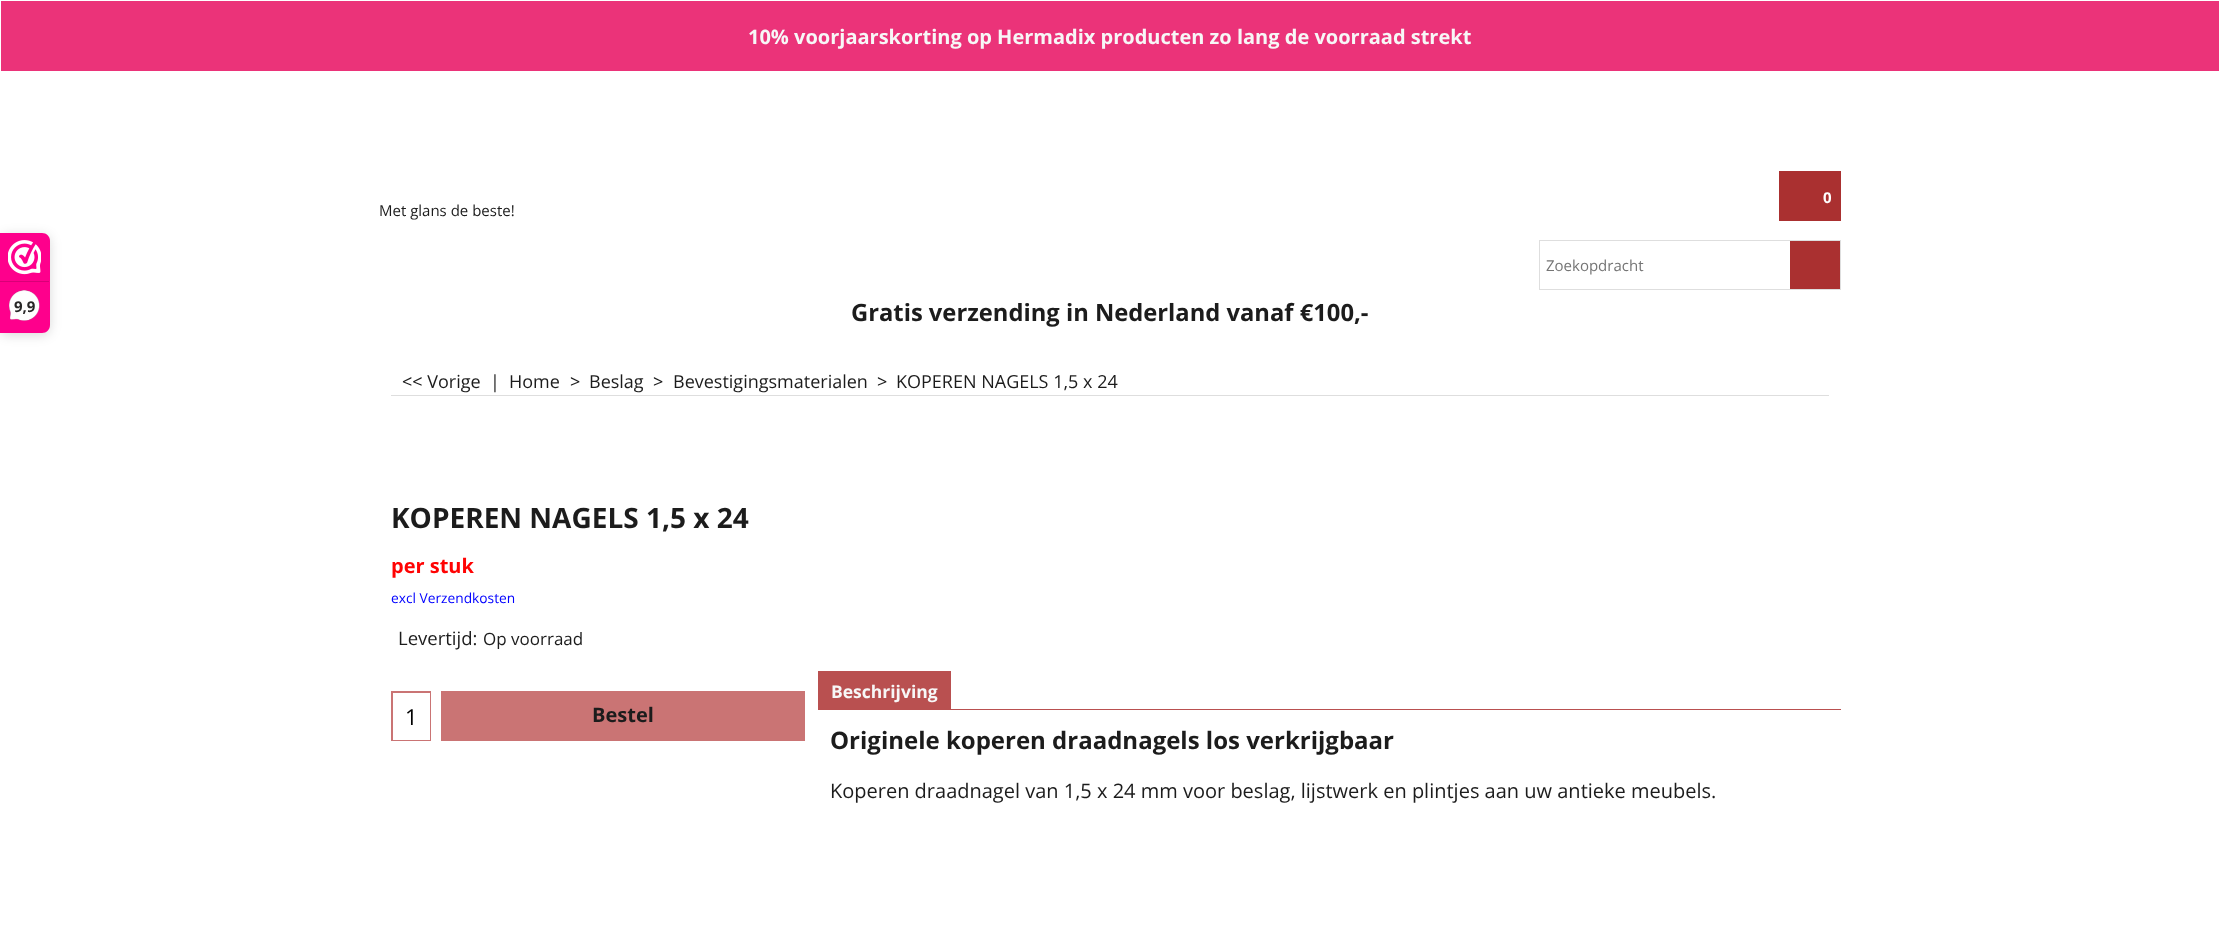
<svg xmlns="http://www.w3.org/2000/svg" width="2220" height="927">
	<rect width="100%" height="100%" fill="#FFFFFF" />
	<rect x="0" y="235" width="50" height="100" rx="8" fill="#000000" fill-opacity="0.15" filter="blur(6px)" />
	<path d="M0 233H42C46.5 233 50 236.5 50 241V325C50 329.5 46.5 333 42 333H0Z" fill="#FE008C" />
	<image x="8" y="240" width="33" height="35" href="assets/img1.png" />
	<rect x="0" y="281" width="49" height="1" fill="#D80077" />
	<image x="9" y="290" width="31" height="31" href="assets/img2.png" />
	<text x="14" y="312" font-family="Open Sans" font-size="15" font-weight="700" fill="#272626">9,9</text>
	<rect x="1" y="1" width="2218" height="70" fill="#EB3379" />
	<text x="748" y="44" font-family="Open Sans" font-size="20" font-weight="700" fill="#F7F7F7">10% voorjaarskorting op Hermadix producten zo lang de voorraad strekt</text>
	<rect x="1779" y="171" width="62" height="50" fill="#AA3030" />
	<text x="1823" y="203" font-family="Open Sans" font-size="15" font-weight="700" fill="#FFFFFF">0</text>
	<text x="379" y="216" font-family="Open Sans" font-size="15" fill="#1C1C1C">Met glans de beste!</text>
	<rect x="1539.5" y="240.5" width="301" height="49" fill="none" stroke="#DEDEDE" />
	<text x="1546" y="271" font-family="Open Sans" font-size="15" fill="#757575">Zoekopdracht</text>
	<rect x="1790" y="241" width="50" height="48" fill="#AA3030" />
	<text x="851" y="321" font-family="Open Sans" font-size="23.75" font-weight="700" fill="#1C1C1C">Gratis verzending in Nederland vanaf €100,-</text>
	<rect x="391" y="395" width="1438" height="1" fill="#DEDEDE" />
	<g font-family="Open Sans" font-size="18" fill="#1C1C1C">
		<text x="402" y="388">&lt;&lt; Vorige</text>
		<text x="490" y="388">|</text>
		<text x="509" y="388">Home</text>
		<text x="570" y="388">&gt;</text>
		<text x="589" y="388">Beslag</text>
		<text x="653" y="388">&gt;</text>
		<text x="673" y="388">Bevestigingsmaterialen</text>
		<text x="877" y="388">&gt;</text>
		<text x="896" y="388">KOPEREN NAGELS 1,5 x 24</text>
	</g>
	<text x="391" y="528" font-family="Open Sans" font-size="28" font-weight="700" fill="#1C1C1C">KOPEREN NAGELS 1,5 x 24</text>
	<text x="391" y="573" font-family="Open Sans" font-size="20" font-weight="700" fill="#FF0303">per stuk</text>
	<text x="391" y="603" font-family="Open Sans" font-size="13.75" fill="#0000FF">excl Verzendkosten</text>
	<text x="398" y="645" font-family="Open Sans" font-size="18.5" fill="#1C1C1C">Levertijd:</text>
	<text x="483" y="645" font-family="Open Sans" font-size="17" fill="#1C1C1C">Op voorraad</text>
	<rect x="391" y="691" width="40" height="50" fill="#CA7474" />
	<rect x="393" y="693" width="37" height="47" fill="#FFFFFF" />
	<text x="405" y="725" font-family="Open Sans" font-size="22" fill="#000000">1</text>
	<rect x="441" y="691" width="364" height="50" fill="#CA7474" />
	<text x="592" y="722" font-family="Open Sans" font-size="20" font-weight="700" fill="#1C1C1C">Bestel</text>
	<rect x="818" y="671" width="133" height="39" fill="#B95050" />
	<text x="831" y="698" font-family="Open Sans" font-size="17.5" font-weight="700" fill="#F7F7F7">Beschrijving</text>
	<rect x="951" y="709" width="890" height="1" fill="#B95050" />
	<text x="830" y="749" font-family="Open Sans" font-size="24" font-weight="700" fill="#1C1C1C">Originele koperen draadnagels los verkrijgbaar</text>
	<text x="830" y="798" font-family="Open Sans" font-size="20" fill="#1C1C1C">Koperen draadnagel van 1,5 x 24 mm voor beslag, lijstwerk en plintjes aan uw antieke meubels.</text>
</svg>
